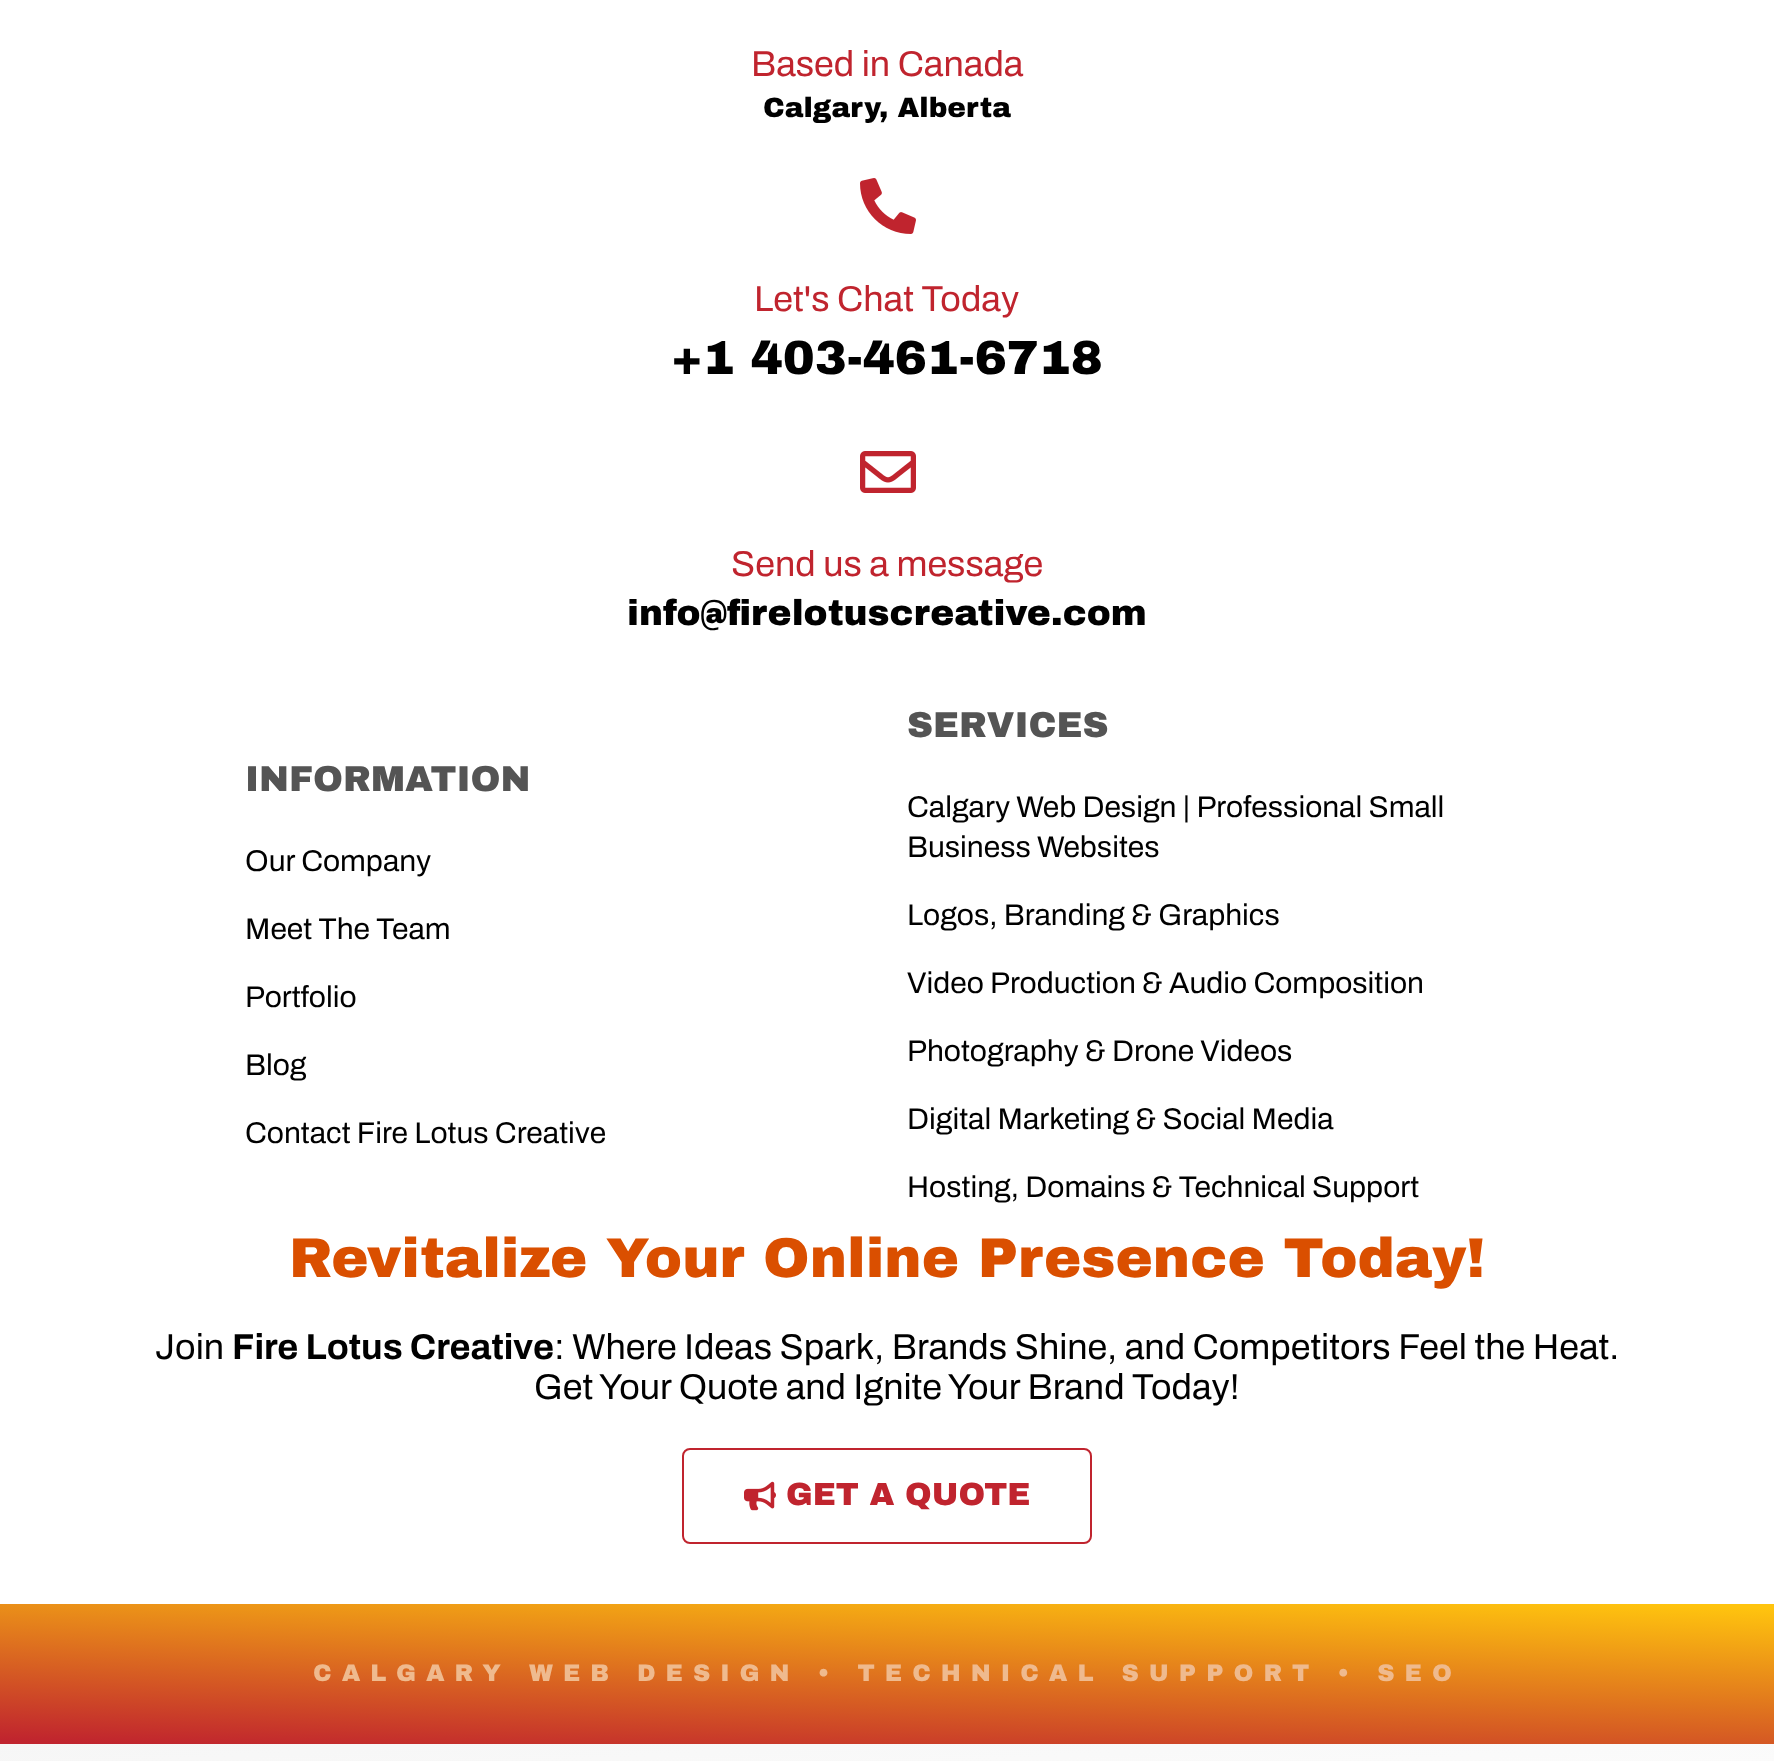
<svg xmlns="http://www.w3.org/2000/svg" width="1774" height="1761">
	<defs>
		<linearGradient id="g1" gradientUnits="userSpaceOnUse" x1="891" y1="1573" x2="883" y2="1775"><stop offset="0" stop-color="#FFC40E" /><stop offset="1" stop-color="#C0242E" /></linearGradient>
		<linearGradient id="g2" gradientUnits="userSpaceOnUse" x1="878" y1="1683" x2="896" y2="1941"><stop offset="0" stop-color="#F6F6F6" /><stop offset="1" stop-color="#FFFFFF" /></linearGradient>
	</defs>
	<rect width="100%" height="100%" fill="#FFFFFF" />
	<text x="751" y="76" font-family="Archivo" font-size="36" fill="#C0242E">Based in Canada</text>
	<text x="763" y="117" font-family="Archivo Black" font-size="28" font-weight="900" fill="#000000">Calgary, Alberta</text>
	<image x="860" y="178" width="56" height="56" href="assets/img1.png" />
	<text x="754" y="311" font-family="Archivo" font-size="36" fill="#C0242E">Let's Chat Today</text>
	<text x="671" y="374" font-family="Archivo Black" font-size="48" font-weight="900" fill="#000000">+1 403-461-6718</text>
	<image x="860" y="451" width="56" height="42" href="assets/img2.png" />
	<text x="731" y="576" font-family="Archivo" font-size="36" fill="#C0242E">Send us a message</text>
	<text x="627" y="625" font-family="Archivo Black" font-size="36" font-weight="900" fill="#000000">info@firelotuscreative.com</text>
	<text x="245" y="791" font-family="Archivo Black" font-size="36" font-weight="900" fill="#545454">INFORMATION</text>
	<g font-family="Archivo" font-size="30" fill="#000000">
		<text x="245" y="871">Our Company</text>
		<text x="245" y="939">Meet The Team</text>
		<text x="245" y="1007">Portfolio</text>
		<text x="245" y="1075">Blog</text>
		<text x="245" y="1143">Contact Fire Lotus Creative</text>
	</g>
	<text x="907" y="737" font-family="Archivo Black" font-size="36" font-weight="900" fill="#545454">SERVICES</text>
	<g font-family="Archivo" font-size="30" fill="#000000">
		<text x="907" y="817">Calgary Web Design | Professional Small</text>
		<text x="907" y="857">Business Websites</text>
		<text x="907" y="925">Logos, Branding &amp; Graphics</text>
		<text x="907" y="993">Video Production &amp; Audio Composition</text>
		<text x="907" y="1061">Photography &amp; Drone Videos</text>
		<text x="907" y="1129">Digital Marketing &amp; Social Media</text>
		<text x="907" y="1197">Hosting, Domains &amp; Technical Support</text>
	</g>
	<text x="289" y="1277" font-family="Archivo Black" font-size="56" font-weight="900" fill="#DA4F00">Revitalize Your Online Presence Today!</text>
	<text x="155" y="1359" font-family="Archivo" font-size="36" fill="#000000">Join</text>
	<text x="232" y="1359" font-family="Archivo" font-size="36" font-weight="700" fill="#000000">Fire Lotus Creative</text>
	<g font-family="Archivo" font-size="36" fill="#000000">
		<text x="554" y="1359">: Where Ideas Spark, Brands Shine, and Competitors Feel the Heat.</text>
		<text x="534" y="1399">Get Your Quote and Ignite Your Brand Today!</text>
	</g>
	<rect x="683" y="1449" width="408" height="94" rx="7" fill="none" stroke="#C0242E" stroke-width="2" />
	<image x="744" y="1481" width="32" height="30" href="assets/img3.png" />
	<text x="786" y="1505" font-family="Archivo Black" font-size="32" font-weight="900" fill="#C0242E">GET A QUOTE</text>
	<rect x="0" y="1604" width="1774" height="140" fill="url(#g1)" />
	<text x="313" y="1681" font-family="Archivo Black" font-size="24" font-weight="900" letter-spacing="10" fill="#EFBA8E">CALGARY WEB DESIGN • TECHNICAL SUPPORT • SEO</text>
	<rect x="0" y="1744" width="1774" height="17" fill="url(#g2)" />
</svg>
